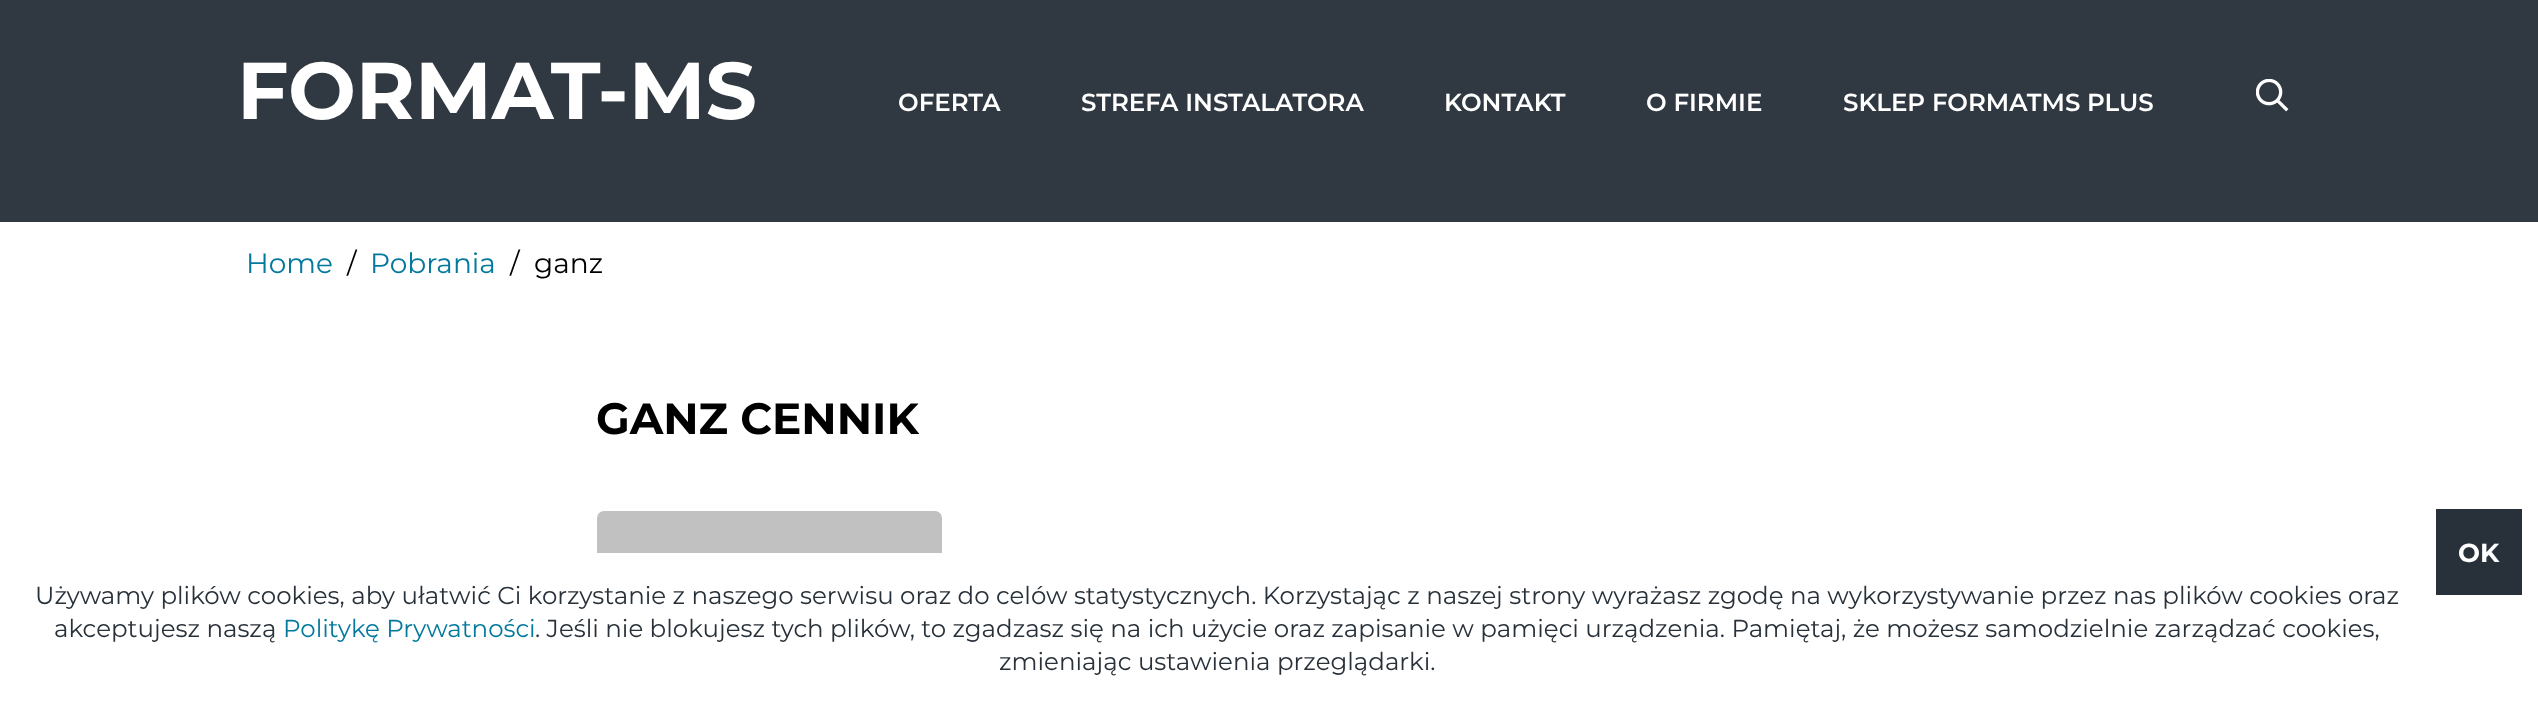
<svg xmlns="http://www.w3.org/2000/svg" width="2538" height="705">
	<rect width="100%" height="100%" fill="#FFFFFF" />
	<rect x="0" y="0" width="2538" height="222" fill="#303941" />
	<text x="237" y="119" font-family="Montserrat" font-size="80.5" font-weight="700" fill="#FFFFFF">FORMAT-MS</text>
	<g font-family="Montserrat" font-size="24.5" font-weight="600" fill="#FFFFFF">
		<text x="898" y="111">OFERTA</text>
		<text x="1081" y="111">STREFA INSTALATORA</text>
		<text x="1444" y="111">KONTAKT</text>
		<text x="1646" y="111">O FIRMIE</text>
		<text x="1843" y="111">SKLEP FORMATMS PLUS</text>
	</g>
	<image x="2256" y="79" width="33" height="33" href="assets/img1.png" />
	<text x="246" y="273" font-family="Montserrat" font-size="28" fill="#03799E">Home</text>
	<text x="347" y="273" font-family="Montserrat" font-size="28" fill="#000000">/</text>
	<text x="370" y="273" font-family="Montserrat" font-size="28" fill="#03799E">Pobrania</text>
	<g font-family="Montserrat" font-size="28" fill="#000000">
		<text x="510" y="273">/</text>
		<text x="534" y="273">ganz</text>
	</g>
	<text x="596" y="434" font-family="Montserrat" font-size="43.75" font-weight="700" fill="#000000">GANZ CENNIK</text>
	<rect x="597" y="511" width="345" height="91" rx="7" fill="#C1C1C1" />
	<rect x="597" y="553" width="345" height="49" fill="#FFFFFF" />
	<rect x="2436" y="509" width="86" height="86" fill="#283139" />
	<text x="2458" y="562" font-family="Montserrat" font-size="26" font-weight="700" fill="#FFFFFF">OK</text>
	<g font-family="Montserrat" font-size="24.5" fill="#283139">
		<text x="35" y="604">Używamy plików cookies, aby ułatwić Ci korzystanie z naszego serwisu oraz do celów statystycznych. Korzystając z naszej strony wyrażasz zgodę na wykorzystywanie przez nas plików cookies oraz</text>
		<text x="54" y="637">akceptujesz naszą</text>
	</g>
	<text x="283" y="637" font-family="Montserrat" font-size="24.5" fill="#03799E">Politykę Prywatności</text>
	<g font-family="Montserrat" font-size="24.5" fill="#283139">
		<text x="535" y="637">. Jeśli nie blokujesz tych plików, to zgadzasz się na ich użycie oraz zapisanie w pamięci urządzenia. Pamiętaj, że możesz samodzielnie zarządzać cookies,</text>
		<text x="999" y="670">zmieniając ustawienia przeglądarki.</text>
	</g>
</svg>
